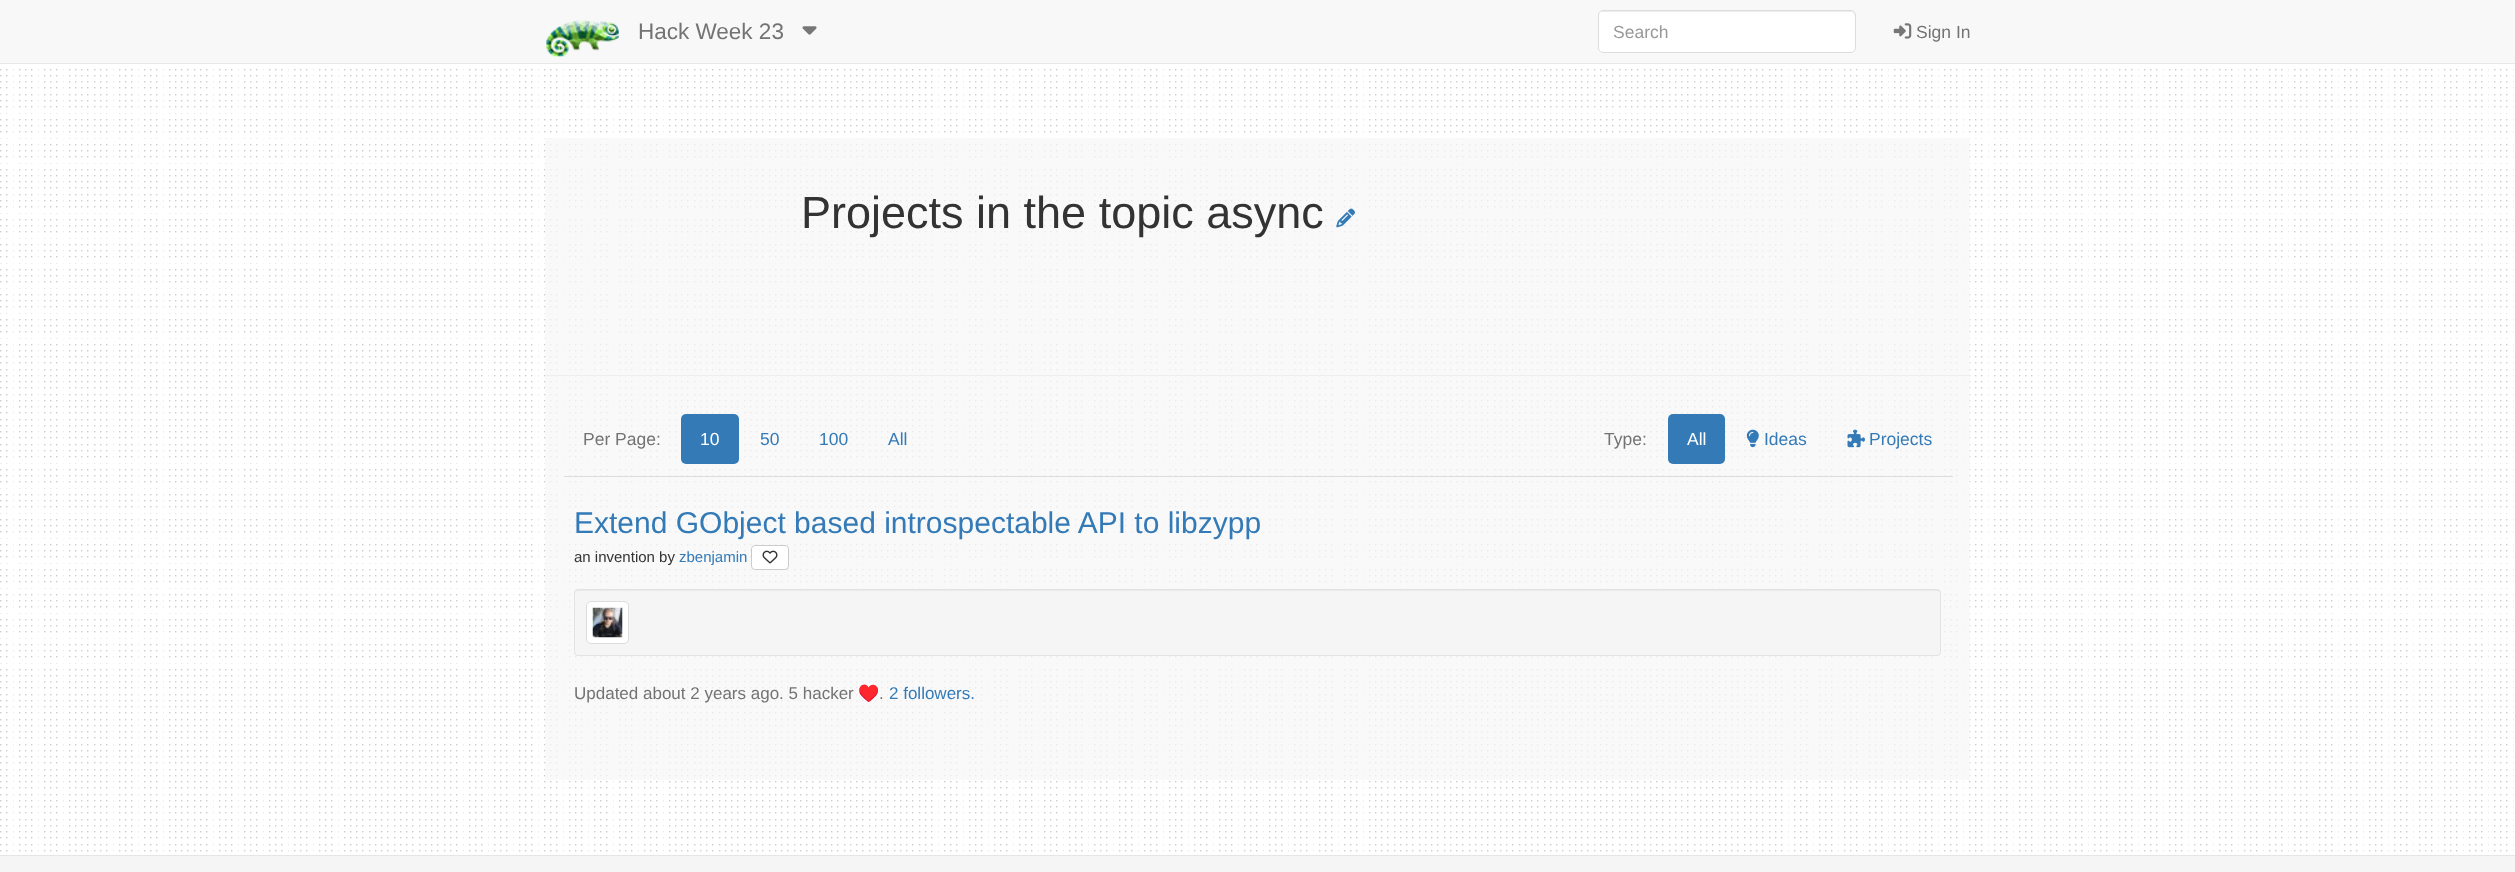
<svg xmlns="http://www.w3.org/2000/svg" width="2515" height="872">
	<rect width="100%" height="100%" fill="#FFFFFF" />
	<image x="0" y="64" width="2514" height="791" href="assets/img1.png" />
	<rect x="0" y="0" width="2515" height="63" fill="#F8F8F8" />
	<rect x="0" y="63" width="2515" height="1" fill="#E7E7E7" />
	<image x="546" y="20" width="73" height="37" href="assets/img2.png" />
	<text x="638" y="39" font-family="Liberation Sans" font-size="22.5" fill="#737373">Hack Week 23</text>
	<image x="802" y="26" width="15" height="9" href="assets/img3.png" />
	<rect x="1598" y="10" width="258" height="43" rx="5" fill="#FFFFFF" />
	<path d="M1602 12H1852L1854 14L1855 16V15C1855 13 1853 11 1851 11H1603C1601 11 1599 13 1599 15V16C1599 14 1600 12 1602 12Z" fill="#ECECEC" />
	<rect x="1598.5" y="10.5" width="257" height="42" rx="4.5" fill="none" stroke="#DDDDDD" />
	<text x="1613" y="38" font-family="Liberation Sans" font-size="17.5" fill="#999999">Search</text>
	<image x="1893" y="23" width="19" height="16" href="assets/img4.png" />
	<text x="1916" y="38" font-family="Liberation Sans" font-size="17.5" fill="#737373">Sign In</text>
	<rect x="545" y="138" width="1425" height="642" fill="#F6F6F6" fill-opacity="0.7" />
	<text x="801" y="228" font-family="Liberation Sans" font-size="45" fill="#333333">Projects in the topic async</text>
	<image x="1336" y="208" width="19" height="20" href="assets/img5.png" />
	<rect x="545" y="375" width="1425" height="1" fill="#EEEEEE" />
	<text x="583" y="445" font-family="Liberation Sans" font-size="17.5" fill="#737373">Per Page:</text>
	<rect x="681" y="414" width="58" height="50" rx="5" fill="#337AB7" />
	<text x="700" y="445" font-family="Liberation Sans" font-size="17.5" fill="#FFFFFF">10</text>
	<g font-family="Liberation Sans" font-size="17.5" fill="#337AB7">
		<text x="760" y="445">50</text>
		<text x="819" y="445">100</text>
		<text x="888" y="445">All</text>
	</g>
	<text x="1604" y="445" font-family="Liberation Sans" font-size="17.5" fill="#737373">Type:</text>
	<rect x="1668" y="414" width="57" height="50" rx="5" fill="#337AB7" />
	<text x="1687" y="445" font-family="Liberation Sans" font-size="17.5" fill="#FFFFFF">All</text>
	<image x="1746" y="429" width="13" height="19" href="assets/img6.png" />
	<text x="1764" y="445" font-family="Liberation Sans" font-size="17.5" fill="#337AB7">Ideas</text>
	<image x="1847" y="429" width="18" height="19" href="assets/img7.png" />
	<text x="1869" y="445" font-family="Liberation Sans" font-size="17.5" fill="#337AB7">Projects</text>
	<rect x="564" y="476" width="1389" height="1" fill="#DDDDDD" />
	<text x="574" y="533" font-family="Liberation Sans" font-size="30" fill="#337AB7">Extend GObject based introspectable API to libzypp</text>
	<text x="574" y="562" font-family="Liberation Sans" font-size="15" fill="#333333">an invention by</text>
	<text x="679" y="562" font-family="Liberation Sans" font-size="15" fill="#337AB7">zbenjamin</text>
	<rect x="751.5" y="545.5" width="37" height="24" rx="3.5" fill="#FFFFFF" stroke="#CCCCCC" />
	<image x="762" y="550" width="16" height="14" href="assets/img8.png" />
	<rect x="574" y="589" width="1367" height="67" rx="4" fill="#F5F5F5" />
	<path d="M578 591H1938C1939 591 1940 592 1940 594V592C1940 591 1939 590 1938 590H578C576 590 575 591 575 592V594C575 592 576 591 578 591Z" fill="#E9E9E9" />
	<rect x="574.5" y="589.5" width="1366" height="66" rx="3.5" fill="none" stroke="#E3E3E3" />
	<rect x="586.5" y="601.5" width="42" height="42" rx="4.5" fill="#FFFFFF" stroke="#DDDDDD" />
	<image x="592" y="607" width="31" height="31" href="assets/img9.png" />
	<text x="574" y="699" font-family="Liberation Sans" font-size="17" fill="#737373">Updated about 2 years ago. 5 hacker</text>
	<text x="858" y="699" font-family="Noto Color Emoji" font-size="17" fill="#737373">♥️</text>
	<text x="879" y="699" font-family="Liberation Sans" font-size="17" fill="#737373">.</text>
	<text x="889" y="699" font-family="Liberation Sans" font-size="17" fill="#337AB7">2 followers.</text>
	<rect x="0" y="856" width="2515" height="16" fill="#F5F5F5" />
	<rect x="0" y="855" width="2515" height="1" fill="#E5E5E5" />
</svg>
